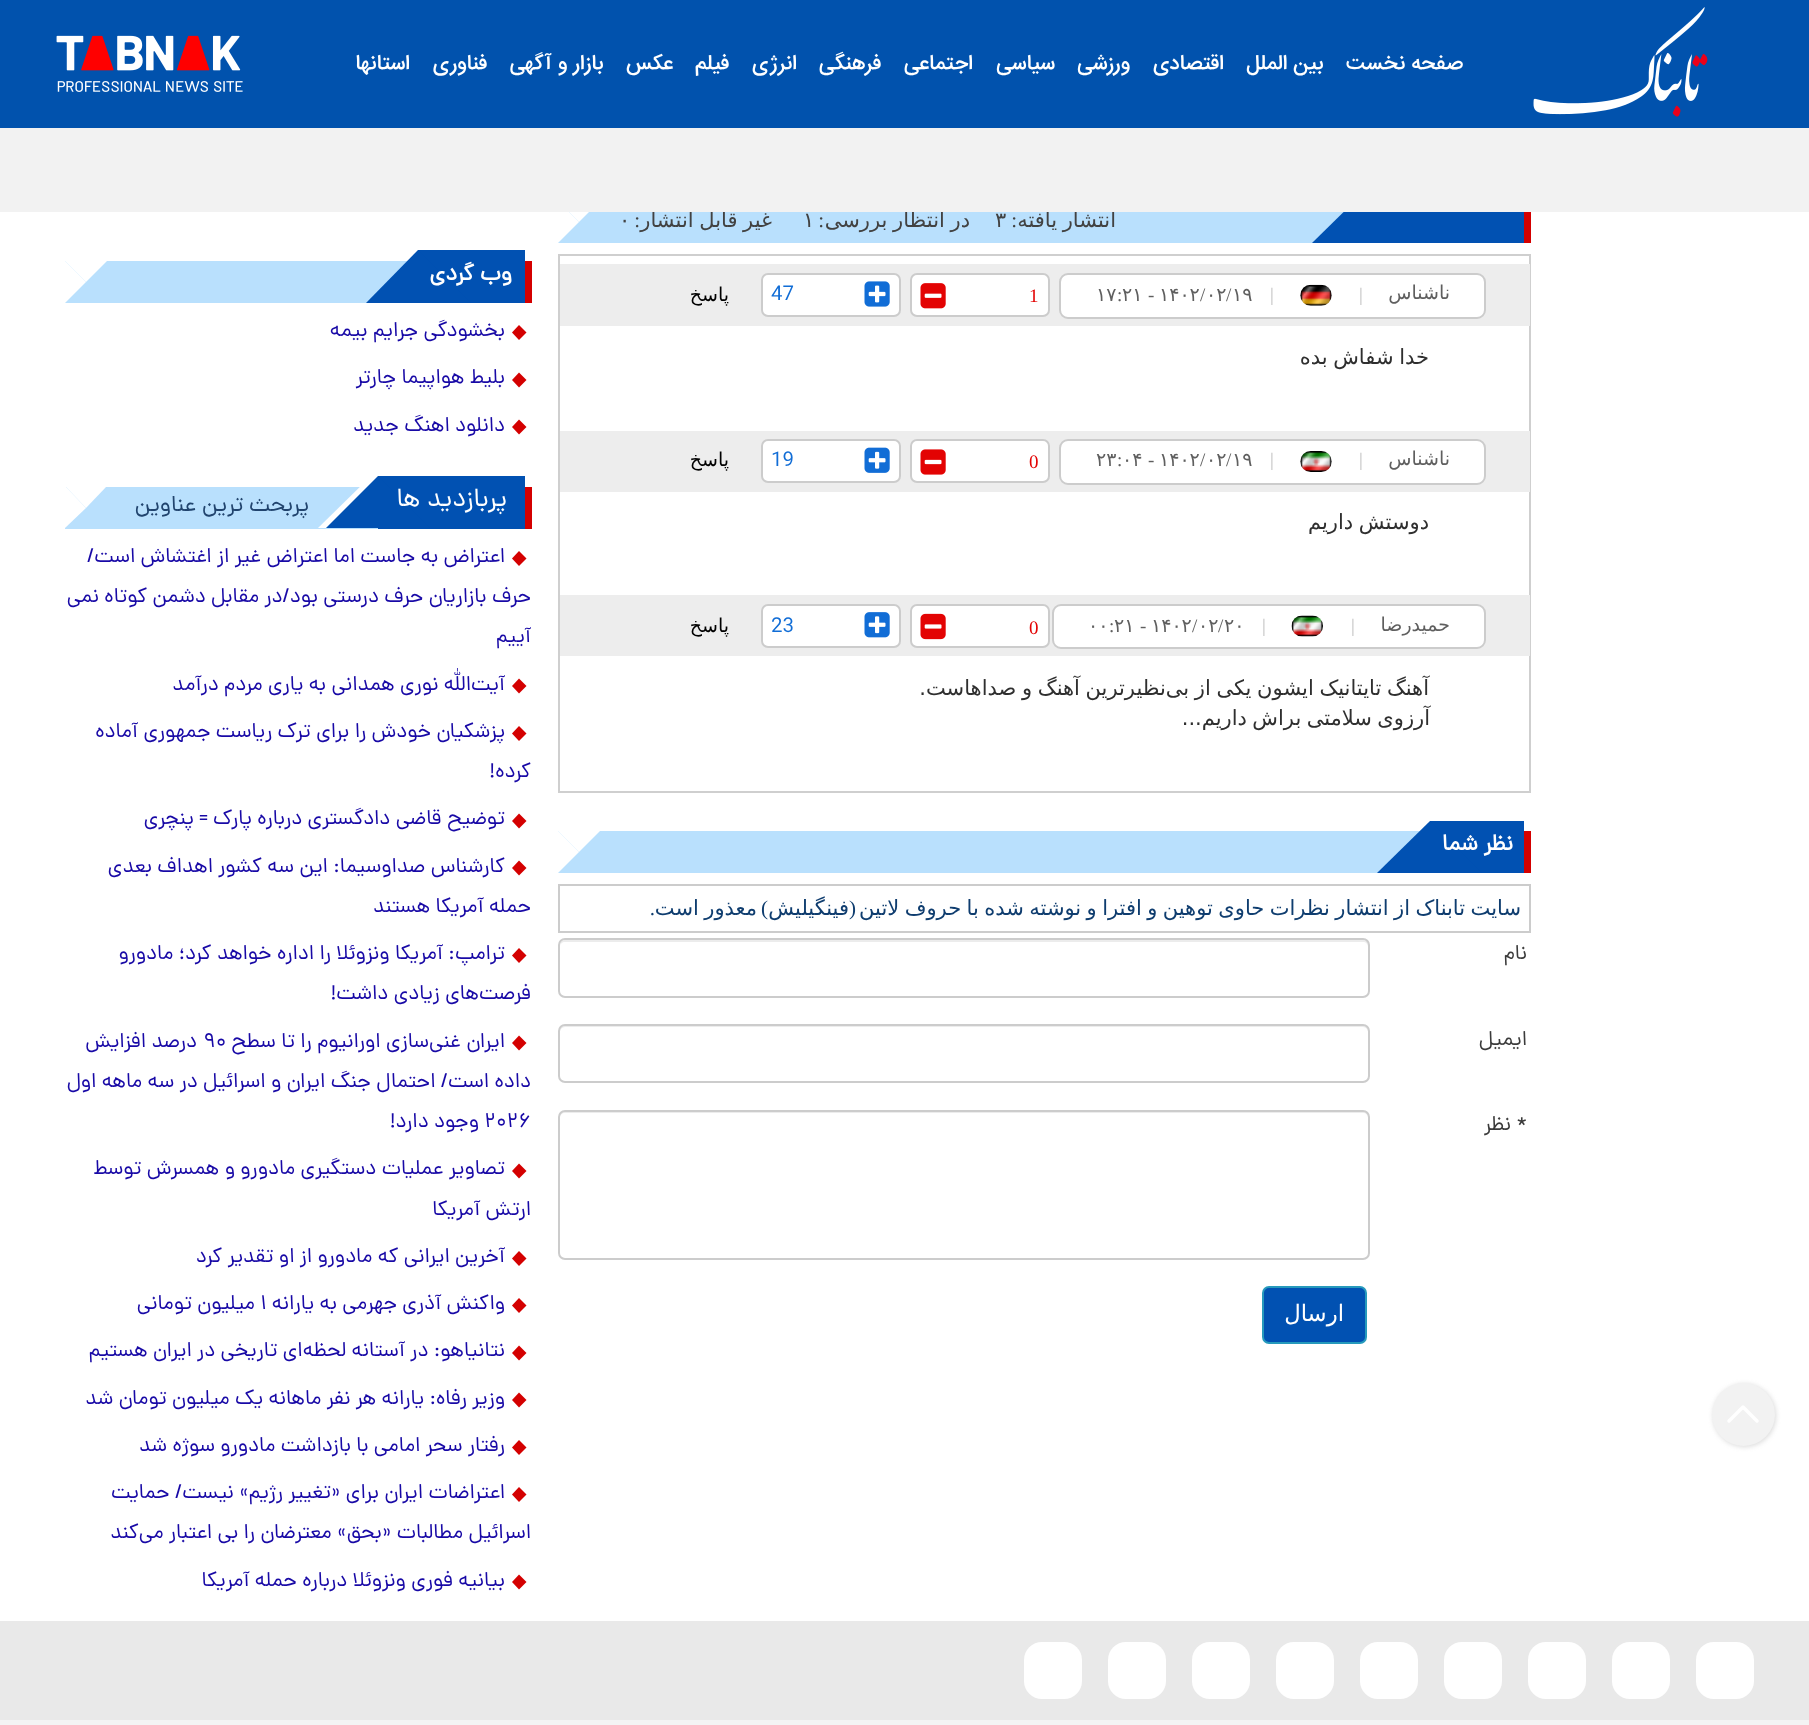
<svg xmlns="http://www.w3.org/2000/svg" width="1809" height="1725">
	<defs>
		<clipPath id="clip1"><rect x="620" y="201" width="152" height="42" /></clipPath>
	</defs>
	<rect width="100%" height="100%" fill="#FFFFFF" />
	<rect x="0" y="0" width="1809" height="128" fill="#0152AD" />
	<image x="1533" y="7" width="175" height="110" href="assets/img1.png" />
	<g font-family="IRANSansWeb" font-size="21" font-weight="500" direction="rtl" fill="#FFFFFF">
		<text x="1463" y="69">صفحه نخست</text>
		<text x="1323" y="69">بین الملل</text>
		<text x="1224" y="69">اقتصادی</text>
		<text x="1130" y="69">ورزشی</text>
		<text x="1055" y="69">سیاسی</text>
		<text x="973" y="69">اجتماعی</text>
		<text x="881" y="69">فرهنگی</text>
		<text x="797" y="69">انرژی</text>
		<text x="729" y="69">فیلم</text>
		<text x="673" y="69">عکس</text>
		<text x="603" y="69">بازار و آگهی</text>
		<text x="487" y="69">فناوری</text>
		<text x="410" y="69">استانها</text>
	</g>
	<image x="56" y="35" width="187" height="57" href="assets/img2.png" />
	<rect x="558" y="212" width="786" height="31" fill="#B9E0FD" />
	<rect x="1386" y="212" width="138" height="31" fill="#0151B2" />
	<path d="M1418 243H1312L1365 191Z" fill="#0151B2" />
	<path d="M558 201H600L579 222Z" fill="#FFFFFF" />
	<path d="M558 243V201L579 222Z" fill="#FFFFFF" />
	<g font-family="DejaVu Sans" font-size="21" direction="rtl" fill="#424242">
		<text x="1116" y="227" word-spacing="-1">انتشار یافته</text>
		<text x="970" y="227" word-spacing="-1">در انتظار بررسی</text>
	</g>
	<g clip-path="url(#clip1)">
		<text x="772" y="227" word-spacing="-1" font-family="DejaVu Sans" font-size="21" direction="rtl" fill="#424242">غیر قابل انتشار</text>
	</g>
	<rect x="0" y="128" width="1809" height="84" fill="#F2F2F2" />
	<rect x="1713" y="1384" width="63" height="63" rx="31.5" fill="#787878" fill-opacity="0.27" filter="blur(2.5px)" />
	<circle cx="1743.5" cy="1414.5" r="31.5" fill="#F2F2F2" />
	<path d="M1729 1421L1743 1407L1757 1421" fill="none" stroke="#FFFFFF" stroke-width="3.5" stroke-linecap="round" stroke-linejoin="round" />
	<rect x="1524" y="212" width="7" height="31" fill="#D40000" />
	<text x="1017" y="227" font-family="Liberation Serif" font-size="21" direction="rtl" fill="#424242">:</text>
	<text x="995" y="227" font-family="DejaVu Sans" font-size="21" fill="#424242">۳</text>
	<text x="824" y="227" font-family="Liberation Serif" font-size="21" direction="rtl" fill="#424242">:</text>
	<text x="803" y="227" font-family="DejaVu Sans" font-size="21" fill="#424242">۱</text>
	<text x="640" y="227" font-family="Liberation Serif" font-size="21" direction="rtl" fill="#424242">:</text>
	<text x="619" y="227" font-family="DejaVu Sans" font-size="21" fill="#424242">۰</text>
	<rect x="559" y="255" width="971" height="537" fill="none" stroke="#CFCFCF" stroke-width="2" />
	<rect x="560" y="264" width="970" height="62" fill="#EDEDED" />
	<rect x="1060" y="274" width="425" height="44" rx="8" fill="#FFFFFF" stroke="#CCCCCC" stroke-width="2" />
	<text x="1450" y="299" font-family="DejaVu Sans" font-size="19" direction="rtl" fill="#5F5F5F">ناشناس</text>
	<text x="1359" y="301" font-family="Liberation Serif" font-size="19" fill="#C0C0C0">|</text>
	<image x="1300" y="284" width="32" height="22" href="assets/img3.png" />
	<text x="1270" y="301" font-family="Liberation Serif" font-size="19" fill="#C0C0C0">|</text>
	<text x="1232" y="301" font-family="DejaVu Sans" font-size="19" fill="#5F5F5F">۱۹</text>
	<text x="1226" y="301" font-family="Liberation Serif" font-size="19" fill="#5F5F5F">/</text>
	<text x="1206" y="301" font-family="DejaVu Sans" font-size="19" fill="#5F5F5F">۰۲</text>
	<text x="1200" y="301" font-family="Liberation Serif" font-size="19" fill="#5F5F5F">/</text>
	<text x="1159" y="301" font-family="DejaVu Sans" font-size="19" fill="#5F5F5F">۱۴۰۲</text>
	<text x="1148" y="301" font-family="Liberation Serif" font-size="19" fill="#5F5F5F">-</text>
	<text x="1122" y="301" font-family="DejaVu Sans" font-size="19" fill="#5F5F5F">۲۱</text>
	<text x="1117" y="301" font-family="Liberation Serif" font-size="19" fill="#5F5F5F">:</text>
	<text x="1096" y="301" font-family="DejaVu Sans" font-size="19" fill="#5F5F5F">۱۷</text>
	<rect x="911" y="274" width="138" height="42" rx="6" fill="#FFFFFF" stroke="#CCCCCC" stroke-width="2" />
	<text x="1029" y="302" font-family="Liberation Serif" font-size="19" fill="#E30303">1</text>
	<image x="920" y="283" width="26" height="26" href="assets/img4.png" />
	<rect x="762" y="274" width="138" height="42" rx="6" fill="#FFFFFF" stroke="#CCCCCC" stroke-width="2" />
	<image x="864" y="281" width="26" height="26" href="assets/img5.png" />
	<text x="771" y="299" font-family="IRANSansWeb" font-size="19" fill="#116DD6">47</text>
	<text x="729" y="301" font-family="DejaVu Sans" font-size="19" direction="rtl" fill="#000000">پاسخ</text>
	<text x="1429" y="364" word-spacing="-1" font-family="DejaVu Sans" font-size="21" direction="rtl" fill="#2F2F2F">خدا شفاش بده</text>
	<rect x="560" y="431" width="970" height="61" fill="#EDEDED" />
	<rect x="1060" y="440" width="425" height="44" rx="8" fill="#FFFFFF" stroke="#CCCCCC" stroke-width="2" />
	<text x="1450" y="465" font-family="DejaVu Sans" font-size="19" direction="rtl" fill="#5F5F5F">ناشناس</text>
	<text x="1359" y="466" font-family="Liberation Serif" font-size="19" fill="#C0C0C0">|</text>
	<image x="1300" y="451" width="32" height="21" href="assets/img6.png" />
	<text x="1270" y="466" font-family="Liberation Serif" font-size="19" fill="#C0C0C0">|</text>
	<text x="1232" y="466" font-family="DejaVu Sans" font-size="19" fill="#5F5F5F">۱۹</text>
	<text x="1226" y="466" font-family="Liberation Serif" font-size="19" fill="#5F5F5F">/</text>
	<text x="1206" y="466" font-family="DejaVu Sans" font-size="19" fill="#5F5F5F">۰۲</text>
	<text x="1200" y="466" font-family="Liberation Serif" font-size="19" fill="#5F5F5F">/</text>
	<text x="1159" y="466" font-family="DejaVu Sans" font-size="19" fill="#5F5F5F">۱۴۰۲</text>
	<text x="1148" y="466" font-family="Liberation Serif" font-size="19" fill="#5F5F5F">-</text>
	<text x="1122" y="466" font-family="DejaVu Sans" font-size="19" fill="#5F5F5F">۰۴</text>
	<text x="1117" y="466" font-family="Liberation Serif" font-size="19" fill="#5F5F5F">:</text>
	<text x="1096" y="466" font-family="DejaVu Sans" font-size="19" fill="#5F5F5F">۲۳</text>
	<rect x="911" y="440" width="138" height="42" rx="6" fill="#FFFFFF" stroke="#CCCCCC" stroke-width="2" />
	<text x="1029" y="468" font-family="Liberation Serif" font-size="19" fill="#E30303">0</text>
	<image x="920" y="449" width="26" height="26" href="assets/img7.png" />
	<rect x="762" y="440" width="138" height="42" rx="6" fill="#FFFFFF" stroke="#CCCCCC" stroke-width="2" />
	<image x="864" y="447" width="26" height="26" href="assets/img8.png" />
	<text x="771" y="465" font-family="IRANSansWeb" font-size="19" fill="#116DD6">19</text>
	<text x="729" y="466" font-family="DejaVu Sans" font-size="19" direction="rtl" fill="#000000">پاسخ</text>
	<text x="1429" y="529" word-spacing="-1" font-family="DejaVu Sans" font-size="21" direction="rtl" fill="#2F2F2F">دوستش داریم</text>
	<rect x="560" y="595" width="970" height="61" fill="#EDEDED" />
	<rect x="1053" y="605" width="432" height="43" rx="8" fill="#FFFFFF" stroke="#CCCCCC" stroke-width="2" />
	<text x="1450" y="631" font-family="DejaVu Sans" font-size="19" direction="rtl" fill="#5F5F5F">حمیدرضا</text>
	<text x="1351" y="632" font-family="Liberation Serif" font-size="19" fill="#C0C0C0">|</text>
	<image x="1291" y="615" width="32" height="22" href="assets/img9.png" />
	<text x="1262" y="632" font-family="Liberation Serif" font-size="19" fill="#C0C0C0">|</text>
	<text x="1224" y="632" font-family="DejaVu Sans" font-size="19" fill="#5F5F5F">۲۰</text>
	<text x="1218" y="632" font-family="Liberation Serif" font-size="19" fill="#5F5F5F">/</text>
	<text x="1198" y="632" font-family="DejaVu Sans" font-size="19" fill="#5F5F5F">۰۲</text>
	<text x="1192" y="632" font-family="Liberation Serif" font-size="19" fill="#5F5F5F">/</text>
	<text x="1151" y="632" font-family="DejaVu Sans" font-size="19" fill="#5F5F5F">۱۴۰۲</text>
	<text x="1140" y="632" font-family="Liberation Serif" font-size="19" fill="#5F5F5F">-</text>
	<text x="1114" y="632" font-family="DejaVu Sans" font-size="19" fill="#5F5F5F">۲۱</text>
	<text x="1109" y="632" font-family="Liberation Serif" font-size="19" fill="#5F5F5F">:</text>
	<text x="1088" y="632" font-family="DejaVu Sans" font-size="19" fill="#5F5F5F">۰۰</text>
	<rect x="911" y="605" width="138" height="42" rx="6" fill="#FFFFFF" stroke="#CCCCCC" stroke-width="2" />
	<text x="1029" y="634" font-family="Liberation Serif" font-size="19" fill="#E30303">0</text>
	<image x="920" y="613" width="26" height="27" href="assets/img10.png" />
	<rect x="762" y="605" width="138" height="42" rx="6" fill="#FFFFFF" stroke="#CCCCCC" stroke-width="2" />
	<image x="864" y="612" width="26" height="26" href="assets/img11.png" />
	<text x="771" y="631" font-family="IRANSansWeb" font-size="19" fill="#116DD6">23</text>
	<text x="729" y="632" font-family="DejaVu Sans" font-size="19" direction="rtl" fill="#000000">پاسخ</text>
	<g font-family="DejaVu Sans" font-size="21" direction="rtl" fill="#2F2F2F">
		<text x="1429" y="695" word-spacing="-1">آهنگ تایتانیک ایشون یکی از بی‌نظیرترین آهنگ و صداهاست.</text>
		<text x="1430" y="725" word-spacing="-1.25">آرزوی سلامتی براش داریم...</text>
	</g>
	<rect x="558" y="831" width="862" height="42" fill="#B9E0FD" />
	<rect x="1524" y="831" width="7" height="42" fill="#D40000" />
	<rect x="1430" y="821" width="94" height="52" fill="#0151B2" />
	<path d="M1482 873H1377L1430 821Z" fill="#0151B2" />
	<text x="1513" y="850" font-family="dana" font-size="22.75" font-weight="700" direction="rtl" fill="#FFFFFF">نظر شما</text>
	<path d="M558 831H600L579 852Z" fill="#FFFFFF" />
	<path d="M558 873V831L579 852Z" fill="#FFFFFF" />
	<rect x="559" y="885" width="971" height="47" fill="none" stroke="#CCCCCC" stroke-width="2" />
	<text x="1521" y="915" word-spacing="-1.25" font-family="DejaVu Sans" font-size="21" direction="rtl" fill="#0F3D6F">سایت تابناک از انتشار نظرات حاوی توهین و افترا و نوشته شده با حروف لاتین</text>
	<text x="856" y="915" font-family="Liberation Serif" font-size="21" direction="rtl" fill="#0F3D6F">(</text>
	<text x="849" y="915" font-family="DejaVu Sans" font-size="21" direction="rtl" fill="#0F3D6F">فینگیلیش</text>
	<text x="768" y="915" font-family="Liberation Serif" font-size="21" direction="rtl" fill="#0F3D6F">)</text>
	<text x="757" y="915" word-spacing="-1.25" font-family="DejaVu Sans" font-size="21" direction="rtl" fill="#0F3D6F">معذور است</text>
	<text x="655" y="915" font-family="Liberation Serif" font-size="21" direction="rtl" fill="#0F3D6F">.</text>
	<text x="1527" y="959" font-family="dana" font-size="21" direction="rtl" fill="#3B3B3B">نام</text>
	<path d="M565 942H1363C1366 942 1368 944 1368 947V992V995L1369 992V944C1369 943 1368 942 1367 941L1364 940H565C561 940 560 944 560 947C560 944 562 942 565 942Z" fill="#ECECEC" />
	<rect x="559" y="939" width="810" height="58" rx="6" fill="none" stroke="#CCCCCC" stroke-width="2" />
	<text x="1527" y="1045" font-family="dana" font-size="21" direction="rtl" fill="#3B3B3B">ایمیل</text>
	<path d="M565 1027H1363C1366 1027 1368 1030 1368 1032V1078L1367 1081C1368 1080 1369 1078 1369 1077V1031C1369 1028 1367 1026 1364 1026H565C562 1026 560 1028 560 1031V1032C560 1030 562 1027 565 1027Z" fill="#ECECEC" />
	<rect x="559" y="1025" width="810" height="57" rx="6" fill="none" stroke="#CCCCCC" stroke-width="2" />
	<text x="1527" y="1130" font-family="dana" font-size="21" direction="rtl" fill="#3B3B3B">* نظر</text>
	<path d="M565 1113H1363C1366 1113 1368 1115 1368 1118V1256C1369 1255 1369 1254 1369 1253V1116C1369 1113 1367 1111 1364 1111H565C562 1111 560 1113 560 1116V1118C560 1115 562 1113 565 1113Z" fill="#ECECEC" />
	<rect x="559" y="1111" width="810" height="148" rx="6" fill="none" stroke="#CCCCCC" stroke-width="2" />
	<rect x="1263" y="1287" width="103" height="56" rx="6" fill="#0151B2" stroke="#269ABC" stroke-width="2" />
	<text x="1344" y="1321" font-family="DejaVu Sans" font-size="22.75" direction="rtl" fill="#FFFFFF">ارسال</text>
	<rect x="65" y="261" width="343" height="42" fill="#B9E0FD" />
	<rect x="525" y="261" width="7" height="42" fill="#D40000" />
	<rect x="418" y="250" width="107" height="53" fill="#0151B2" />
	<path d="M471 303H366L418 250Z" fill="#0151B2" />
	<text x="512" y="280" font-family="dana" font-size="22.75" font-weight="700" direction="rtl" fill="#FFFFFF">وب گردی</text>
	<path d="M65 261H107L86 282Z" fill="#FFFFFF" />
	<path d="M65 303V261L86 282Z" fill="#FFFFFF" />
	<path d="M519 325L526.5 332.5L519 340L512 332.5Z" fill="#D40000" />
	<text x="505" y="336" font-family="dana" font-size="21" direction="rtl" fill="#1809A6">بخشودگی جرایم بیمه</text>
	<path d="M519 372.5L526.5 380L519 387.5L512 380Z" fill="#D40000" />
	<text x="505" y="383" font-family="dana" font-size="21" direction="rtl" fill="#1809A6">بلیط هواپیما چارتر</text>
	<path d="M519 419.5L526.5 427L519 434.5L512 427Z" fill="#D40000" />
	<text x="505" y="431" font-family="dana" font-size="21" direction="rtl" fill="#1809A6">دانلود اهنگ جدید</text>
	<rect x="65" y="487" width="313" height="42" fill="#B9E0FD" />
	<rect x="525" y="487" width="7" height="42" fill="#D40000" />
	<rect x="378" y="476" width="147" height="53" fill="#0151B2" />
	<path d="M424 528H318L371 476Z" fill="#FFFFFF" />
	<path d="M430 528H326L378 476Z" fill="#0151B2" />
	<text x="507" y="506" font-family="dana" font-size="26.25" direction="rtl" fill="#FFFFFF">پربازدید ها</text>
	<text x="309" y="511" font-family="dana" font-size="22.75" direction="rtl" fill="#21446E">پربحث ترین عناوین</text>
	<path d="M65 486H107L86 508Z" fill="#FFFFFF" />
	<path d="M65 528V486L86 508Z" fill="#FFFFFF" />
	<path d="M519 551L526.5 558.5L519 566L512 558.5Z" fill="#D40000" />
	<g font-family="dana" font-size="21" direction="rtl" fill="#1809A6">
		<text x="505" y="562">اعتراض به جاست اما اعتراض غیر از اغتشاش است/</text>
		<text x="531" y="602">حرف بازاریان حرف درستی بود/در مقابل دشمن کوتاه نمی</text>
		<text x="531" y="642">آییم</text>
	</g>
	<path d="M519 678.5L526.5 686L519 693.5L512 686Z" fill="#D40000" />
	<text x="505" y="690" font-family="dana" font-size="21" direction="rtl" fill="#1809A6">آیت‌الله نوری همدانی به یاری مردم درآمد</text>
	<path d="M519 726L526.5 733.5L519 741L512 733.5Z" fill="#D40000" />
	<g font-family="dana" font-size="21" direction="rtl" fill="#1809A6">
		<text x="505" y="737">پزشکیان خودش را برای ترک ریاست جمهوری آماده</text>
		<text x="531" y="777">کرده!</text>
	</g>
	<path d="M519 813.5L526.5 821L519 828.5L512 821Z" fill="#D40000" />
	<text x="505" y="824" font-family="dana" font-size="21" direction="rtl" fill="#1809A6">توضیح قاضی دادگستری درباره پارک = پنچری</text>
	<path d="M519 860.5L526.5 868L519 875.5L512 868Z" fill="#D40000" />
	<g font-family="dana" font-size="21" direction="rtl" fill="#1809A6">
		<text x="505" y="872">کارشناس صداوسیما: این سه کشور اهداف بعدی</text>
		<text x="531" y="912">حمله آمریکا هستند</text>
	</g>
	<path d="M519 948L526.5 955.5L519 963L512 955.5Z" fill="#D40000" />
	<g font-family="dana" font-size="21" direction="rtl" fill="#1809A6">
		<text x="505" y="959">ترامپ: آمریکا ونزوئلا را اداره خواهد کرد؛ مادورو</text>
		<text x="531" y="999">فرصت‌های زیادی داشت!</text>
	</g>
	<path d="M519 1035.5L526.5 1043L519 1050.5L512 1043Z" fill="#D40000" />
	<text x="505" y="1047" font-family="dana" font-size="21" direction="rtl" fill="#1809A6">ایران غنی‌سازی اورانیوم را تا سطح</text>
	<text x="203" y="1047" font-family="dana" font-size="21" fill="#1809A6">۹۰</text>
	<g font-family="dana" font-size="21" direction="rtl" fill="#1809A6">
		<text x="197" y="1047">درصد افزایش</text>
		<text x="531" y="1087">داده است/ احتمال جنگ ایران و اسرائیل در سه ماهه اول</text>
	</g>
	<text x="484" y="1127" font-family="dana" font-size="21" fill="#1809A6">۲۰۲۶</text>
	<text x="479" y="1127" font-family="dana" font-size="21" direction="rtl" fill="#1809A6">وجود دارد!</text>
	<path d="M519 1163.5L526.5 1171L519 1178.5L512 1171Z" fill="#D40000" />
	<g font-family="dana" font-size="21" direction="rtl" fill="#1809A6">
		<text x="505" y="1174">تصاویر عملیات دستگیری مادورو و همسرش توسط</text>
		<text x="531" y="1215">ارتش آمریکا</text>
	</g>
	<path d="M519 1251L526.5 1258.5L519 1266L512 1258.5Z" fill="#D40000" />
	<text x="505" y="1262" font-family="dana" font-size="21" direction="rtl" fill="#1809A6">آخرین ایرانی که مادورو از او تقدیر کرد</text>
	<path d="M519 1298L526.5 1305.5L519 1313L512 1305.5Z" fill="#D40000" />
	<text x="505" y="1309" font-family="dana" font-size="21" direction="rtl" fill="#1809A6">واکنش آذری جهرمی به یارانه</text>
	<text x="260" y="1309" font-family="dana" font-size="21" fill="#1809A6">۱</text>
	<text x="255" y="1309" font-family="dana" font-size="21" direction="rtl" fill="#1809A6">میلیون تومانی</text>
	<path d="M519 1345.5L526.5 1353L519 1360.5L512 1353Z" fill="#D40000" />
	<text x="505" y="1356" font-family="dana" font-size="21" direction="rtl" fill="#1809A6">نتانیاهو: در آستانه لحظه‌ای تاریخی در ایران هستیم</text>
	<path d="M519 1392.5L526.5 1400L519 1407.5L512 1400Z" fill="#D40000" />
	<text x="505" y="1404" font-family="dana" font-size="21" direction="rtl" fill="#1809A6">وزیر رفاه: یارانه هر نفر ماهانه یک میلیون تومان شد</text>
	<path d="M519 1440L526.5 1447.5L519 1455L512 1447.5Z" fill="#D40000" />
	<text x="505" y="1451" font-family="dana" font-size="21" direction="rtl" fill="#1809A6">رفتار سحر امامی با بازداشت مادورو سوژه شد</text>
	<path d="M519 1487L526.5 1494.5L519 1502L512 1494.5Z" fill="#D40000" />
	<g font-family="dana" font-size="21" direction="rtl" fill="#1809A6">
		<text x="505" y="1498">اعتراضات ایران برای «تغییر رژیم» نیست/ حمایت</text>
		<text x="531" y="1538">اسرائیل مطالبات «بحق» معترضان را بی اعتبار می‌کند</text>
	</g>
	<path d="M519 1574.5L526.5 1582L519 1589.5L512 1582Z" fill="#D40000" />
	<text x="505" y="1586" font-family="dana" font-size="21" direction="rtl" fill="#1809A6">بیانیه فوری ونزوئلا درباره حمله آمریکا</text>
	<rect x="0" y="1621" width="1809" height="99" fill="#E9E9E9" />
	<rect x="1696" y="1642" width="58" height="57" rx="18" fill="#FFFFFF" />
	<rect x="1612" y="1642" width="58" height="57" rx="18" fill="#FFFFFF" />
	<rect x="1528" y="1642" width="58" height="57" rx="18" fill="#FFFFFF" />
	<rect x="1444" y="1642" width="58" height="57" rx="18" fill="#FFFFFF" />
	<rect x="1360" y="1642" width="58" height="57" rx="18" fill="#FFFFFF" />
	<rect x="1276" y="1642" width="58" height="57" rx="18" fill="#FFFFFF" />
	<rect x="1192" y="1642" width="58" height="57" rx="18" fill="#FFFFFF" />
	<rect x="1108" y="1642" width="58" height="57" rx="18" fill="#FFFFFF" />
	<rect x="1024" y="1642" width="58" height="57" rx="18" fill="#FFFFFF" />
	<rect x="0" y="1720" width="1809" height="5" fill="#F4F4F4" />
</svg>
